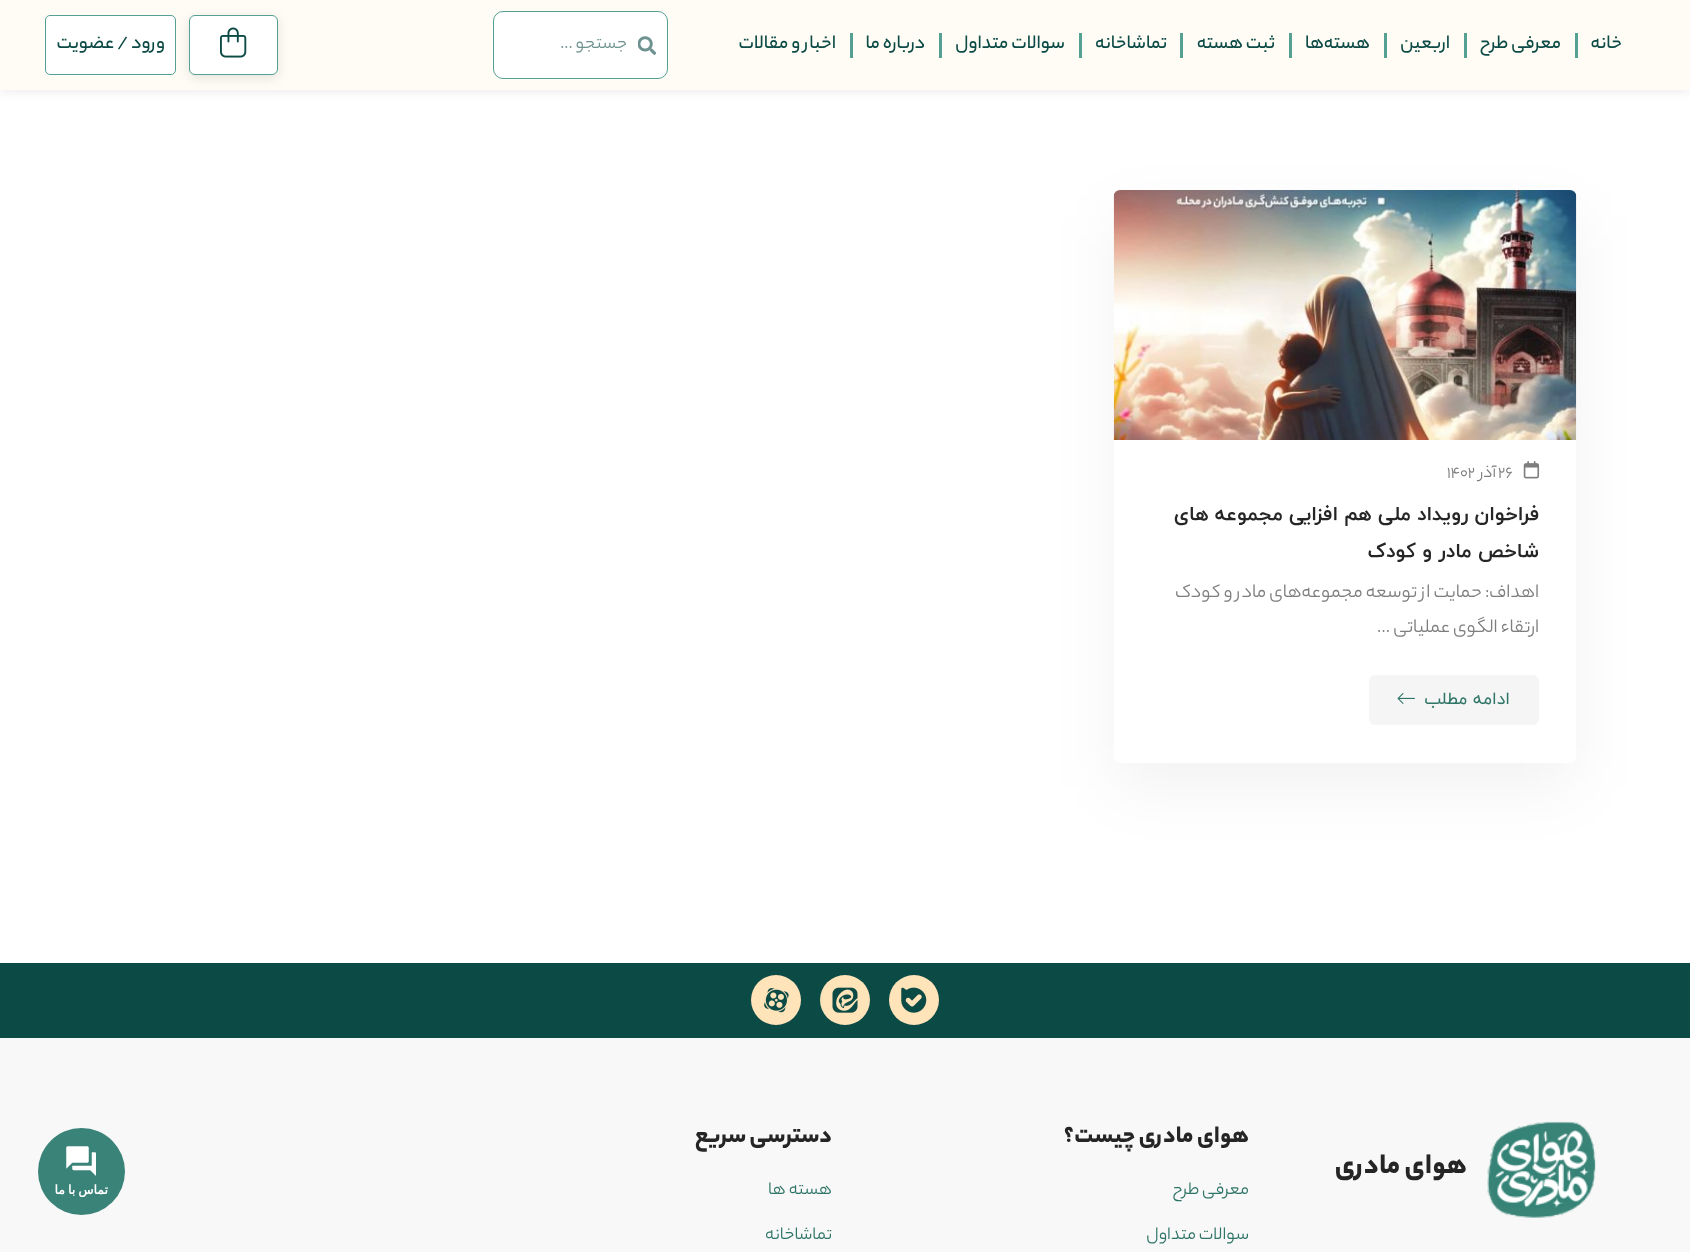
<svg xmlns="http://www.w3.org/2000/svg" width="1690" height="1252">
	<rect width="100%" height="100%" fill="#FFFFFF" />
	<rect x="0" y="0" width="1690" height="90" fill="#000000" fill-opacity="0.1" filter="blur(6px)" />
	<rect x="0" y="0" width="1690" height="90" fill="#FFFBF5" />
	<text x="1622" y="48" font-family="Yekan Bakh" font-size="20" font-weight="500" direction="rtl" fill="#0B4A45">خانه</text>
	<rect x="1575" y="33" width="3" height="25" fill="#54A092" />
	<text x="1561" y="48" font-family="Yekan Bakh" font-size="20" font-weight="500" direction="rtl" fill="#0B4A45">معرفی طرح</text>
	<rect x="1464" y="33" width="3" height="25" fill="#54A092" />
	<text x="1450" y="48" font-family="Yekan Bakh" font-size="20" font-weight="500" direction="rtl" fill="#0B4A45">اربعین</text>
	<rect x="1384" y="33" width="3" height="25" fill="#54A092" />
	<text x="1370" y="48" font-family="Yekan Bakh" font-size="20" font-weight="500" direction="rtl" fill="#0B4A45">هسته‌ها</text>
	<rect x="1289" y="33" width="3" height="25" fill="#54A092" />
	<text x="1275" y="48" font-family="Yekan Bakh" font-size="20" font-weight="500" direction="rtl" fill="#0B4A45">ثبت هسته</text>
	<rect x="1180" y="33" width="3" height="25" fill="#54A092" />
	<text x="1167" y="48" font-family="Yekan Bakh" font-size="20" font-weight="500" direction="rtl" fill="#0B4A45">تماشاخانه</text>
	<rect x="1079" y="33" width="3" height="25" fill="#54A092" />
	<text x="1065" y="48" font-family="Yekan Bakh" font-size="20" font-weight="500" direction="rtl" fill="#0B4A45">سوالات متداول</text>
	<rect x="939" y="33" width="3" height="25" fill="#54A092" />
	<text x="925" y="48" font-family="Yekan Bakh" font-size="20" font-weight="500" direction="rtl" fill="#0B4A45">درباره ما</text>
	<rect x="850" y="33" width="3" height="25" fill="#54A092" />
	<text x="836" y="48" font-family="Yekan Bakh" font-size="20" font-weight="500" direction="rtl" fill="#0B4A45">اخبار و مقالات</text>
	<rect x="493.5" y="11.5" width="174" height="67" rx="9.5" fill="#FFFFFF" stroke="#54A092" />
	<image x="638" y="36" width="18" height="19" href="assets/img1.png" />
	<text x="627" y="48" font-family="Yekan Bakh" font-size="18.75" direction="rtl" fill="#6D928F">جستجو ...</text>
	<rect x="189" y="18" width="89" height="60" rx="6" fill="#000000" fill-opacity="0.1" filter="blur(6px)" />
	<rect x="189.5" y="15.5" width="88" height="59" rx="5.5" fill="#FFFFFF" stroke="#54A092" />
	<image x="220" y="27" width="27" height="31" href="assets/img2.png" />
	<rect x="45.5" y="15.5" width="130" height="59" rx="4.5" fill="#FFFFFF" stroke="#54A092" />
	<text x="165" y="48" font-family="Yekan Bakh" font-size="20" font-weight="500" direction="rtl" fill="#0B4A45">ورود / عضویت</text>
	<rect x="1114" y="215" width="462" height="573" rx="6" fill="#000000" fill-opacity="0.05" filter="blur(31px)" />
	<rect x="1114" y="190" width="462" height="573" rx="6" fill="#FFFFFF" />
	<image x="1113" y="190" width="464" height="250" href="assets/img3.png" />
	<image x="1523" y="461" width="17" height="18" href="assets/img4.png" />
	<text x="1498" y="477" font-family="Yekan Bakh" font-size="17.5" fill="#7E7E7E">۲۶</text>
	<text x="1496" y="477" font-family="Yekan Bakh" font-size="17.5" direction="rtl" fill="#7E7E7E">آذر</text>
	<text x="1447" y="477" font-family="Yekan Bakh" font-size="17.5" fill="#7E7E7E">۱۴۰۲</text>
	<g font-family="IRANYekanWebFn" font-size="20" font-weight="700" direction="rtl" fill="#252525">
		<text x="1539" y="520">فراخوان رویداد ملی هم افزایی مجموعه های</text>
		<text x="1539" y="557">شاخص مادر و کودک</text>
	</g>
	<g font-family="Yekan Bakh" font-size="20" direction="rtl" fill="#7E7E7E">
		<text x="1539" y="597">اهداف: حمایت از توسعه مجموعه‌های مادر و کودک</text>
		<text x="1539" y="632">ارتقاء الگوی عملیاتی …</text>
	</g>
	<rect x="1369" y="675" width="170" height="50" rx="6" fill="#F5F5F5" />
	<text x="1510" y="704" font-family="IRANYekanWebFn" font-size="17.5" direction="rtl" fill="#2F7567">ادامه مطلب</text>
	<image x="1397" y="693" width="18" height="11" href="assets/img5.png" />
	<rect x="0" y="963" width="1690" height="75" fill="#0B4A45" />
	<circle cx="914" cy="1000" r="25" fill="#FFE3B9" />
	<image x="901" y="987" width="26" height="26" href="assets/img6.png" />
	<circle cx="845" cy="1000" r="25" fill="#FFE3B9" />
	<image x="832" y="987" width="26" height="26" href="assets/img7.png" />
	<circle cx="776" cy="1000" r="25" fill="#FFE3B9" />
	<image x="764" y="988" width="25" height="25" href="assets/img8.png" />
	<rect x="0" y="1038" width="1690" height="214" fill="#F8F8F8" />
	<image x="1487" y="1121" width="109" height="97" href="assets/img9.png" />
	<text x="1467" y="1173" font-family="Yekan Bakh" font-size="30" font-weight="900" direction="rtl" fill="#252525">هوای مادری</text>
	<text x="1249" y="1142" font-family="Yekan Bakh" font-size="25" font-weight="900" direction="rtl" fill="#252525">هوای مادری چیست؟</text>
	<g font-family="Yekan Bakh" font-size="18.75" direction="rtl" fill="#2F7567">
		<text x="1249" y="1194">معرفی طرح</text>
		<text x="1249" y="1239">سوالات متداول</text>
	</g>
	<text x="832" y="1142" font-family="Yekan Bakh" font-size="25" font-weight="900" direction="rtl" fill="#252525">دسترسی سریع</text>
	<g font-family="Yekan Bakh" font-size="18.75" direction="rtl" fill="#2F7567">
		<text x="832" y="1194">هسته ها</text>
		<text x="832" y="1239">تماشاخانه</text>
	</g>
	<circle cx="81.5" cy="1171.5" r="43.5" fill="#3A8378" />
	<image x="66" y="1146" width="30" height="30" href="assets/img10.png" />
	<text x="108" y="1194" word-spacing="-1" font-family="DejaVu Sans" font-size="12.5" font-weight="700" direction="rtl" fill="#FFFFFF">تماس با ما</text>
</svg>
